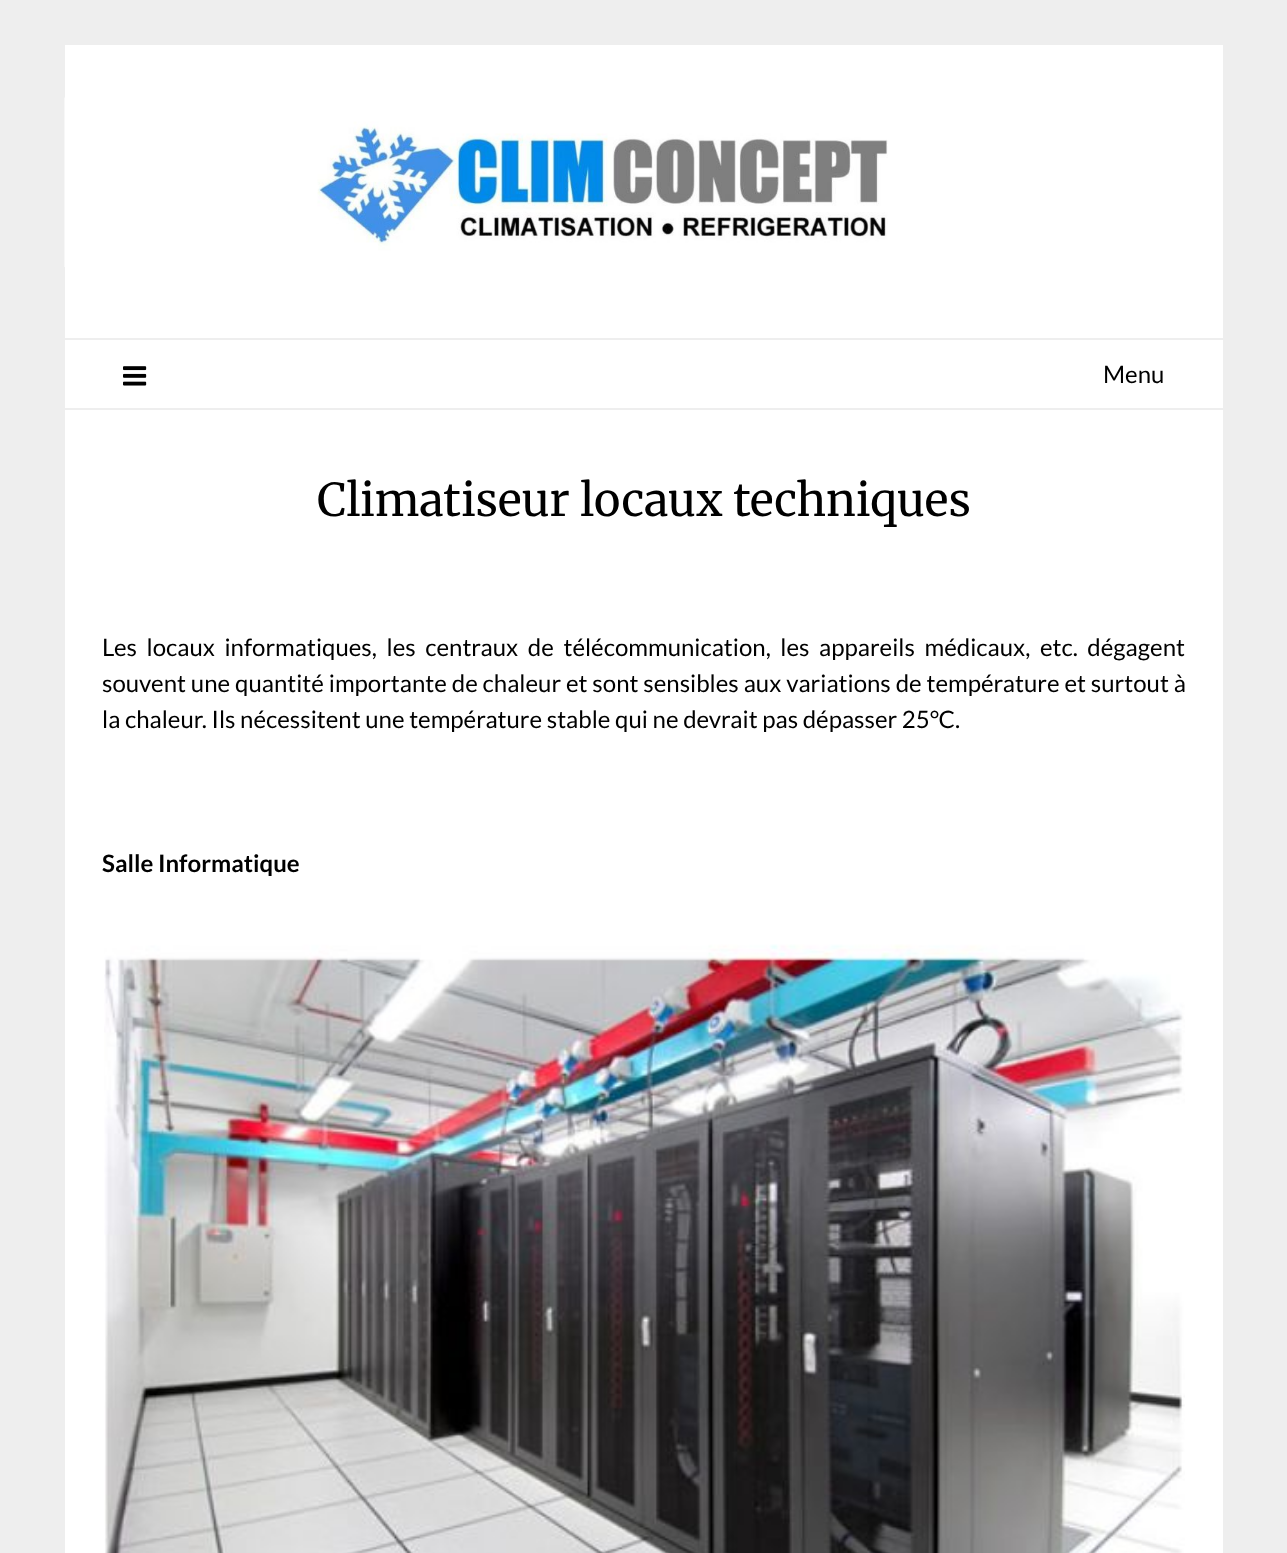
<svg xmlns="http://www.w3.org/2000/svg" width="1287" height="1553">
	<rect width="100%" height="100%" fill="#EEEEEE" />
	<rect x="65" y="45" width="1158" height="293" fill="#FFFFFF" />
	<image x="64" y="97" width="824" height="170" href="assets/img1.png" />
	<rect x="65" y="340" width="1158" height="68" fill="#FFFFFF" />
	<image x="123" y="366" width="24" height="20" href="assets/img2.png" />
	<text x="1103" y="383" font-family="Lato" font-size="24" fill="#000000">Menu</text>
	<rect x="65" y="410" width="1158" height="1143" fill="#FFFFFF" />
	<text x="317" y="516" font-family="Merriweather" font-size="45" fill="#000000">Climatiseur locaux techniques</text>
	<g font-family="Lato" font-size="24" fill="#000000">
		<text x="102" y="656" word-spacing="5">Les locaux informatiques, les centraux de télécommunication, les appareils médicaux, etc. dégagent</text>
		<text x="102" y="692" word-spacing="0.25">souvent une quantité importante de chaleur et sont sensibles aux variations de température et surtout à</text>
		<text x="102" y="728">la chaleur. Ils nécessitent une température stable qui ne devrait pas dépasser 25°C.</text>
	</g>
	<text x="102" y="872" font-family="Lato" font-size="24" font-weight="700" fill="#000000">Salle Informatique</text>
	<image x="104" y="944" width="1081" height="609" href="assets/img3.png" />
</svg>
